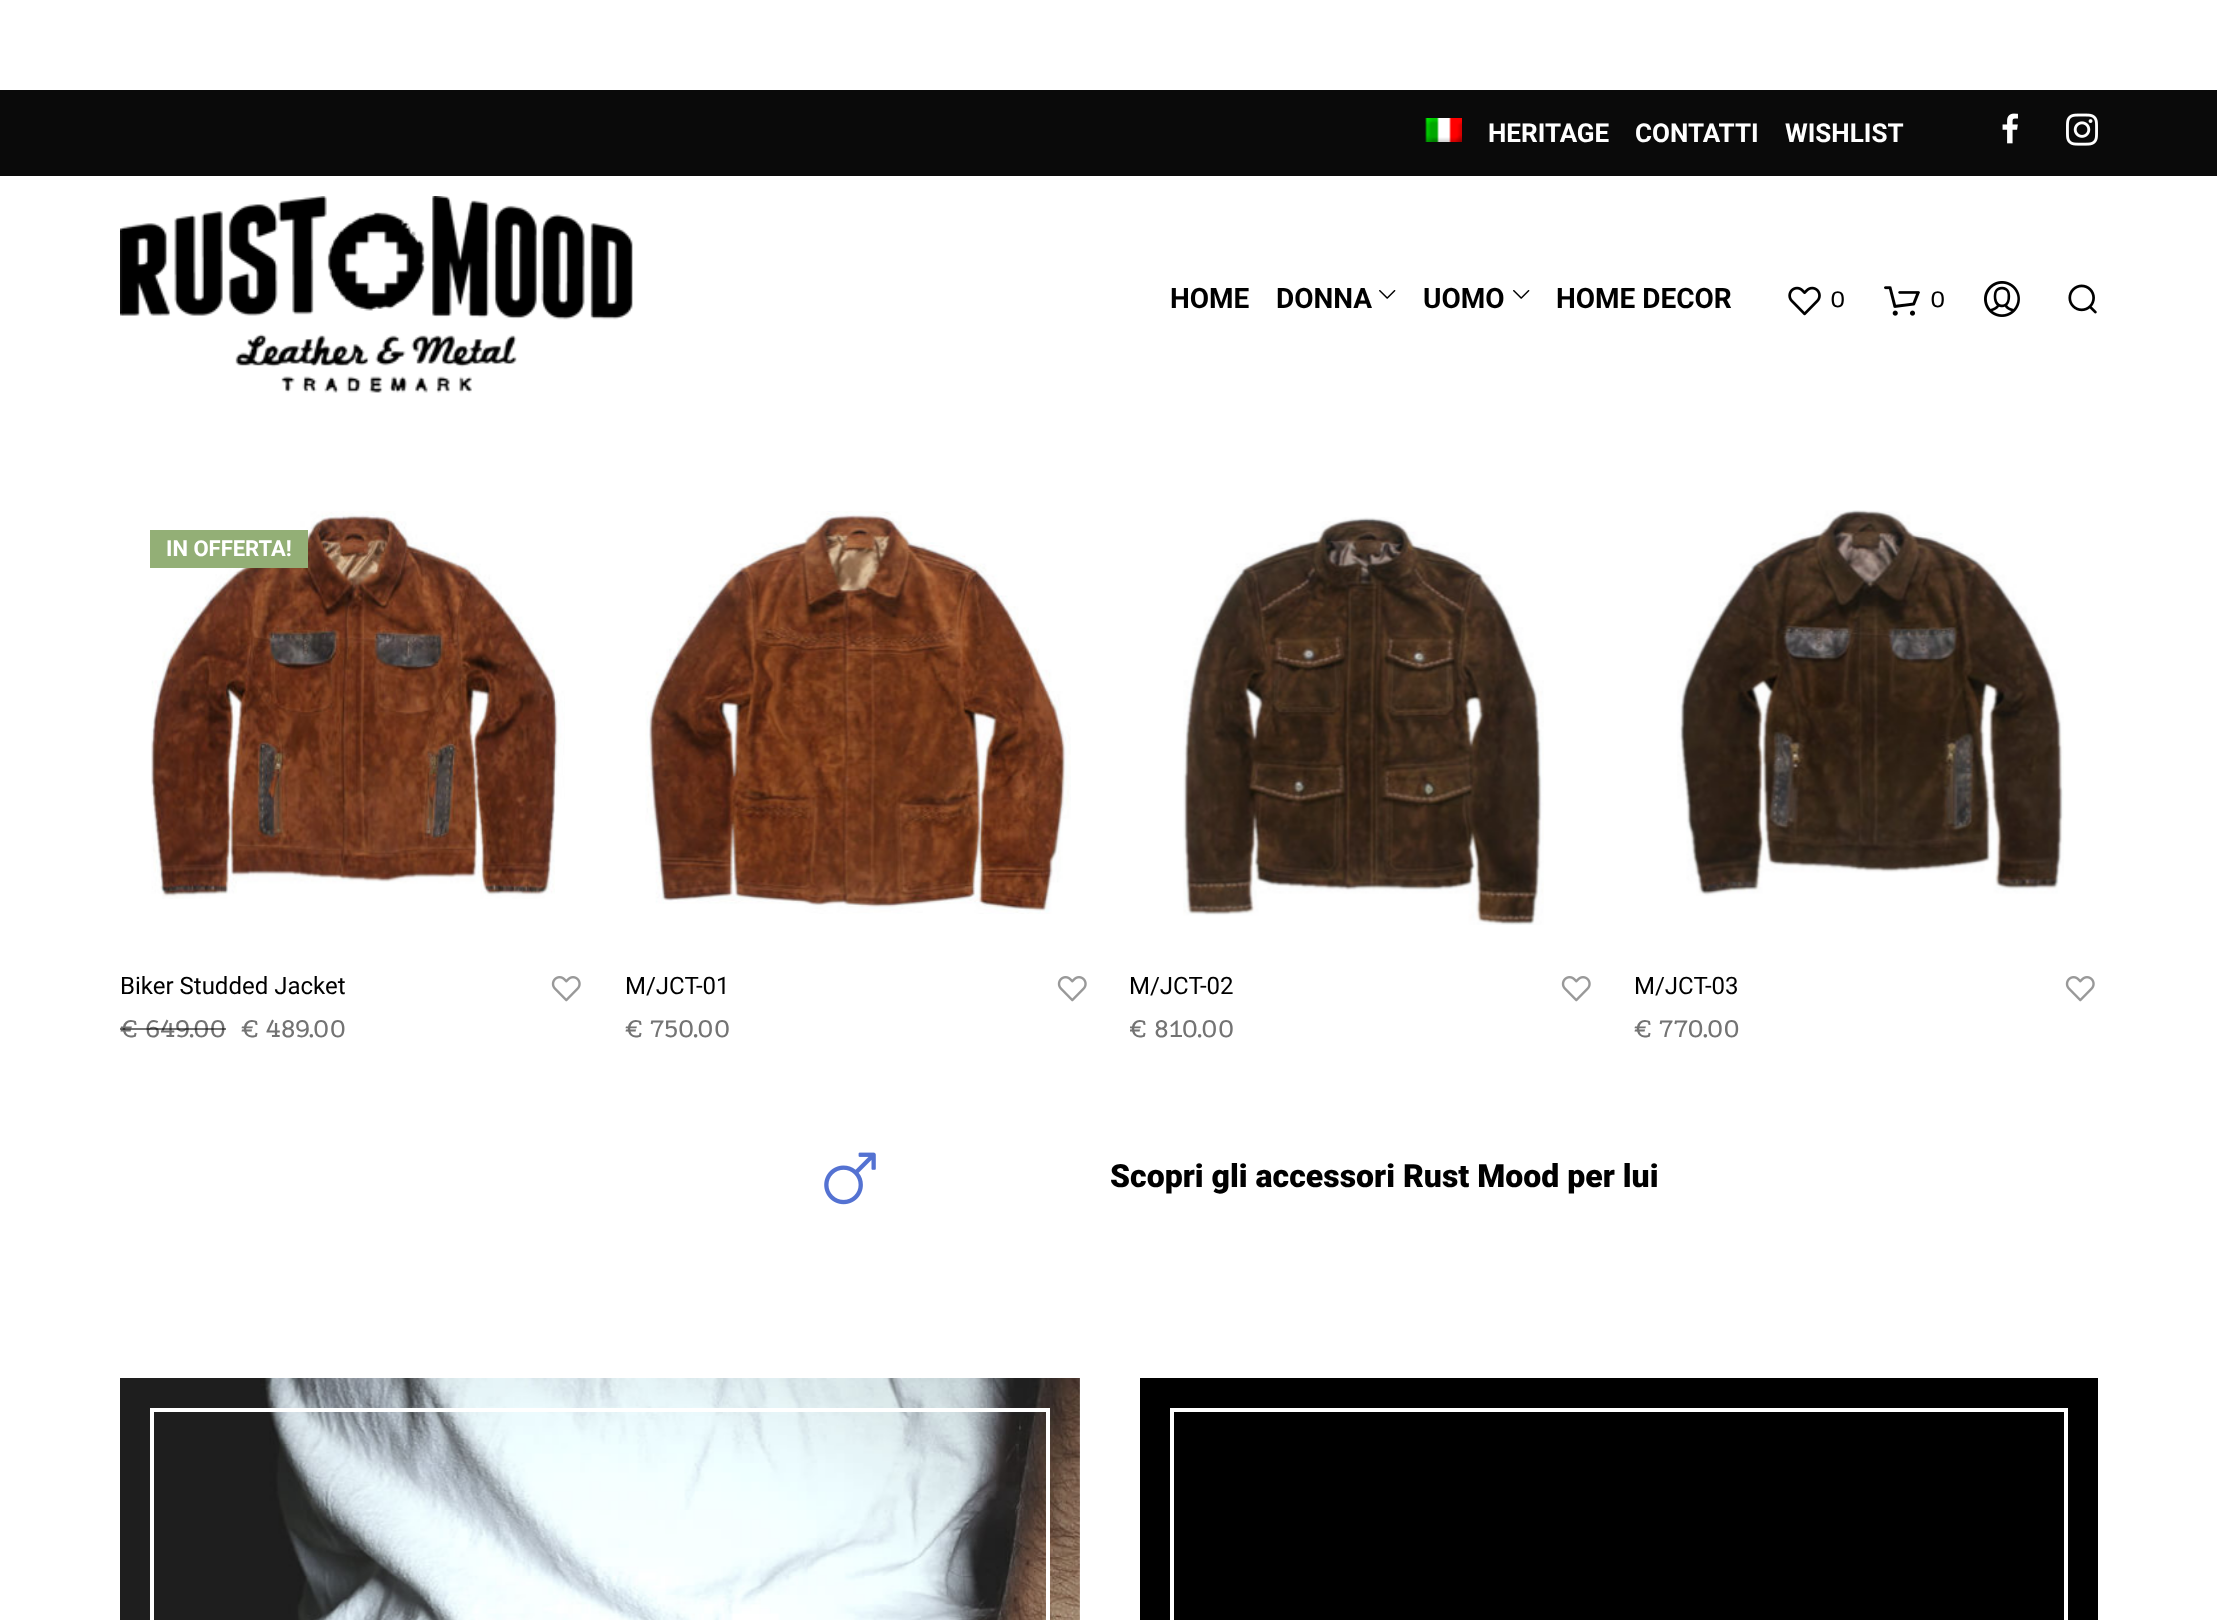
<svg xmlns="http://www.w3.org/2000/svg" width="2217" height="1620">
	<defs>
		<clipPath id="clip1"><rect x="1130" y="1000" width="464" height="66" /></clipPath>
	</defs>
	<rect width="100%" height="100%" fill="#FFFFFF" />
	<rect x="0" y="90" width="2217" height="86" fill="#0A0A0A" />
	<image x="1425" y="118" width="37" height="24" href="assets/img1.png" />
	<g font-family="Roboto" font-size="26" font-weight="700" fill="#FFFFFF">
		<text x="1488" y="142">HERITAGE</text>
		<text x="1635" y="142">CONTATTI</text>
		<text x="1785" y="142">WISHLIST</text>
	</g>
	<image x="2002" y="113" width="16" height="31" href="assets/img2.png" />
	<image x="2066" y="113" width="32" height="33" href="assets/img3.png" />
	<image x="120" y="196" width="513" height="197" href="assets/img4.png" />
	<g font-family="Roboto" font-size="28" font-weight="700" fill="#000000">
		<text x="1170" y="308">HOME</text>
		<text x="1276" y="308">DONNA</text>
	</g>
	<image x="1379" y="290" width="17" height="9" href="assets/img5.png" />
	<text x="1423" y="308" font-family="Roboto" font-size="28" font-weight="700" fill="#000000">UOMO</text>
	<image x="1513" y="290" width="17" height="9" href="assets/img5.png" />
	<text x="1556" y="308" font-family="Roboto" font-size="28" font-weight="700" fill="#000000">HOME DECOR</text>
	<image x="1788" y="286" width="33" height="30" href="assets/img6.png" />
	<text x="1830" y="307" font-family="Podkova" font-size="26" fill="#000000">0</text>
	<image x="1884" y="286" width="36" height="30" href="assets/img7.png" />
	<text x="1930" y="307" font-family="Podkova" font-size="26" fill="#000000">0</text>
	<image x="1984" y="281" width="36" height="36" href="assets/img8.png" />
	<image x="2068" y="284" width="29" height="30" href="assets/img9.png" />
	<image x="151" y="511" width="414" height="388" href="assets/img10.png" />
	<rect x="150" y="530" width="158" height="38" fill="#93AF76" />
	<text x="166" y="556" font-family="Roboto" font-size="22" font-weight="700" fill="#FFFFFF">IN OFFERTA!</text>
	<image x="551" y="976" width="30" height="26" href="assets/img11.png" />
	<text x="120" y="994" font-family="Roboto" font-size="24" fill="#000000">Biker Studded Jacket</text>
	<text x="120" y="1037" font-family="Podkova" font-size="28" fill="#737373">€ 649.00</text>
	<rect x="120" y="1028" width="18" height="2" fill="#000000" fill-opacity="0.55" />
	<rect x="138" y="1028" width="88" height="2" fill="#000000" fill-opacity="0.55" />
	<text x="241" y="1037" font-family="Podkova" font-size="28" fill="#737373">€ 489.00</text>
	<image x="645" y="511" width="426" height="403" href="assets/img12.png" />
	<image x="1057" y="976" width="30" height="26" href="assets/img11.png" />
	<text x="625" y="994" font-family="Roboto" font-size="24" fill="#000000">M/JCT-01</text>
	<text x="625" y="1037" font-family="Podkova" font-size="28" fill="#737373">€ 750.00</text>
	<text x="1129" y="994" font-family="Roboto" font-size="24" fill="#000000">M/JCT-02</text>
	<image x="1183" y="517" width="361" height="408" href="assets/img13.png" />
	<image x="1561" y="976" width="30" height="26" href="assets/img11.png" />
	<g clip-path="url(#clip1)">
		<text x="1129" y="1037" font-family="Podkova" font-size="28" fill="#737373">€</text>
	</g>
	<text x="1154" y="1037" font-family="Podkova" font-size="28" fill="#737373">810.00</text>
	<image x="1677" y="510" width="387" height="386" href="assets/img14.png" />
	<image x="2065" y="976" width="30" height="26" href="assets/img11.png" />
	<text x="1634" y="994" font-family="Roboto" font-size="24" fill="#000000">M/JCT-03</text>
	<text x="1634" y="1037" font-family="Podkova" font-size="28" fill="#737373">€ 770.00</text>
	<image x="824" y="1152" width="52" height="53" href="assets/img15.png" />
	<text x="1110" y="1187" font-family="Roboto" font-size="32" font-weight="900" fill="#000000">Scopri gli accessori Rust Mood per lui</text>
	<image x="120" y="1378" width="960" height="242" href="assets/img16.png" />
	<rect x="152" y="1410" width="896" height="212" fill="none" stroke="#FFFFFF" stroke-width="4" />
	<rect x="1140" y="1378" width="958" height="242" fill="#000000" />
	<rect x="1172" y="1410" width="894" height="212" fill="none" stroke="#FFFFFF" stroke-width="4" />
</svg>
